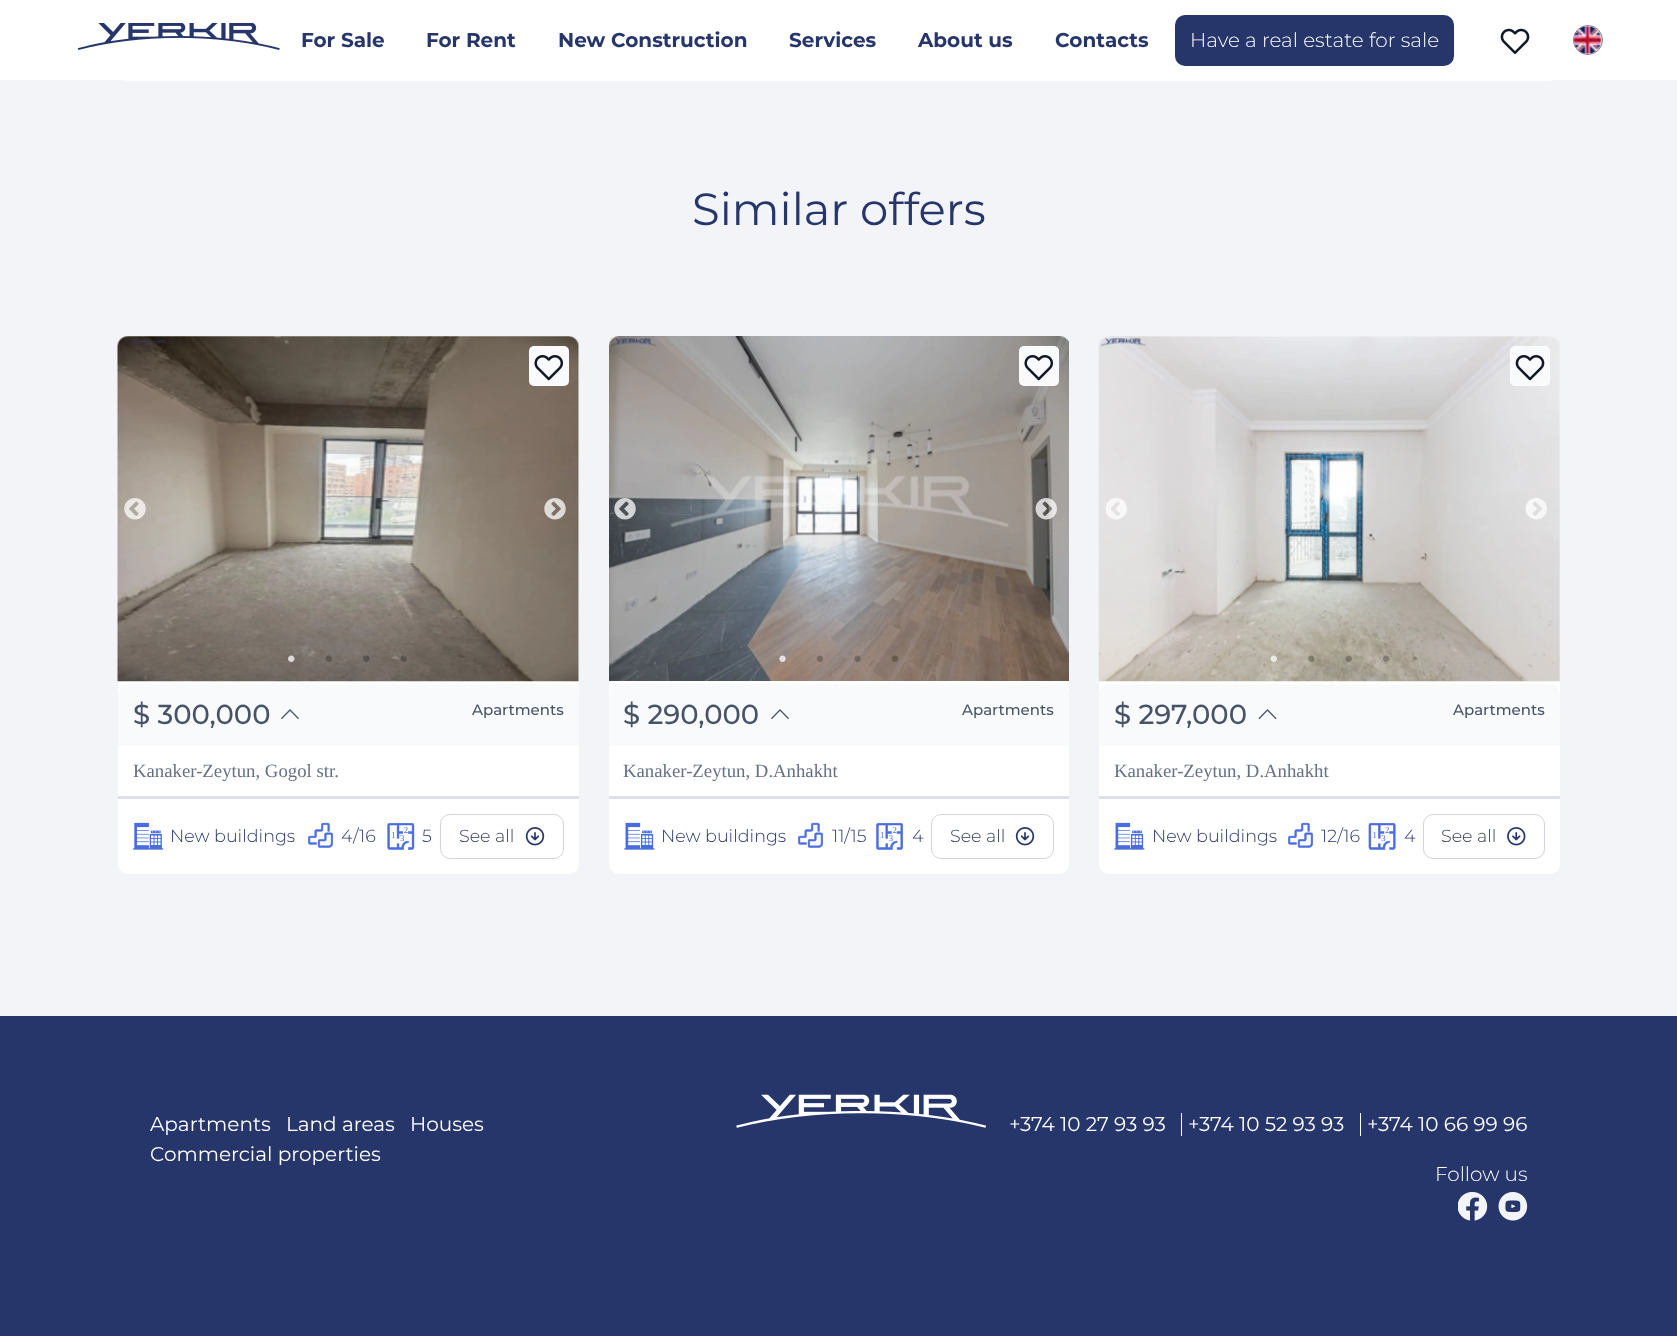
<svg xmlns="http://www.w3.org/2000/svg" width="1677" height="1336">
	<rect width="100%" height="100%" fill="#F2F4F7" />
	<rect x="118" y="-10" width="1442" height="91" rx="10" fill="#FFFFFF" />
	<rect x="0" y="0" width="1677" height="80" fill="#FFFFFF" />
	<image x="77" y="23" width="203" height="27" href="assets/img1.png" />
	<g font-family="Montserrat" font-size="20" font-weight="700" fill="#26366B">
		<text x="301" y="47">For Sale</text>
		<text x="426" y="47">For Rent</text>
		<text x="558" y="47">New Construction</text>
		<text x="789" y="47">Services</text>
		<text x="918" y="47">About us</text>
		<text x="1055" y="47">Contacts</text>
	</g>
	<rect x="1175" y="15" width="279" height="51" rx="10" fill="#26366B" />
	<text x="1190" y="47" font-family="Montserrat" font-size="20" font-weight="300" fill="#FFFFFF">Have a real estate for sale</text>
	<image x="1500" y="28" width="30" height="26" href="assets/img2.png" />
	<circle cx="1588" cy="40" r="14.5" fill="none" stroke="#808080" />
	<image x="1573" y="26" width="29" height="28" href="assets/img3.png" />
	<text x="692" y="225" font-family="Montserrat" font-size="45" fill="#26366B">Similar offers</text>
	<rect x="118" y="336" width="461" height="538" rx="10" fill="#FFFFFF" />
	<image x="117" y="336" width="462" height="346" href="assets/img4.png" />
	<image x="124" y="498" width="22" height="22" href="assets/img5.png" />
	<image x="544" y="498" width="22" height="22" href="assets/img6.png" />
	<image x="288" y="655" width="7" height="7" href="assets/img7.png" />
	<image x="325" y="655" width="7" height="7" href="assets/img8.png" />
	<image x="363" y="655" width="7" height="7" href="assets/img9.png" />
	<image x="400" y="655" width="7" height="7" href="assets/img10.png" />
	<rect x="529" y="346" width="40" height="40" rx="5" fill="#F9FAFB" />
	<image x="534" y="355" width="30" height="26" href="assets/img11.png" />
	<path d="M128 684H569C574.5 684 579 688.5 579 694V746H118V694C118 688.5 122.5 684 128 684Z" fill="#F9FAFB" />
	<text x="133" y="724" font-family="Montserrat" font-size="27.5" font-weight="500" fill="#475467">$ 300,000</text>
	<image x="281" y="709" width="18" height="11" href="assets/img12.png" />
	<text x="472" y="715" font-family="Montserrat" font-size="15" font-weight="500" fill="#475467">Apartments</text>
	<text x="133" y="777" font-family="Liberation Serif" font-size="18.75" fill="#667085">Kanaker-Zeytun, Gogol str.</text>
	<rect x="118" y="796" width="461" height="3" fill="#DEE1E9" />
	<image x="133" y="822" width="31" height="28" href="assets/img13.png" />
	<text x="170" y="842" font-family="Montserrat" font-size="17.5" font-weight="300" fill="#26366B">New buildings</text>
	<image x="308" y="822" width="25" height="26" href="assets/img14.png" />
	<text x="341" y="842" font-family="Montserrat" font-size="17.5" font-weight="300" fill="#26366B">4/16</text>
	<image x="387" y="823" width="28" height="27" href="assets/img15.png" />
	<text x="422" y="842" font-family="Montserrat" font-size="17.5" font-weight="300" fill="#26366B">5</text>
	<rect x="440.5" y="814.5" width="123" height="44" rx="9.5" fill="none" stroke="#D0D5DD" />
	<text x="459" y="842" font-family="Montserrat" font-size="17.5" font-weight="300" fill="#344054">See all</text>
	<image x="525" y="827" width="20" height="19" href="assets/img16.png" />
	<rect x="609" y="336" width="460" height="538" rx="10" fill="#FFFFFF" />
	<image x="609" y="336" width="460" height="345" href="assets/img17.png" />
	<image x="614" y="498" width="22" height="22" href="assets/img18.png" />
	<image x="1035" y="498" width="22" height="22" href="assets/img19.png" />
	<image x="779" y="655" width="7" height="7" href="assets/img20.png" />
	<image x="816" y="655" width="8" height="7" href="assets/img21.png" />
	<image x="854" y="655" width="7" height="7" href="assets/img22.png" />
	<image x="891" y="655" width="8" height="7" href="assets/img23.png" />
	<rect x="1019" y="346" width="40" height="40" rx="5" fill="#F9FAFB" />
	<image x="1024" y="355" width="30" height="26" href="assets/img11.png" />
	<path d="M619 684H1059C1064.5 684 1069 688.5 1069 694V746H609V694C609 688.5 613.5 684 619 684Z" fill="#F9FAFB" />
	<text x="623" y="724" font-family="Montserrat" font-size="27.5" font-weight="500" fill="#475467">$ 290,000</text>
	<image x="771" y="709" width="18" height="11" href="assets/img12.png" />
	<text x="962" y="715" font-family="Montserrat" font-size="15" font-weight="500" fill="#475467">Apartments</text>
	<text x="623" y="777" font-family="Liberation Serif" font-size="18.75" fill="#667085">Kanaker-Zeytun, D.Anhakht</text>
	<rect x="609" y="796" width="460" height="3" fill="#DEE1E9" />
	<image x="624" y="822" width="31" height="28" href="assets/img24.png" />
	<text x="661" y="842" font-family="Montserrat" font-size="17.5" font-weight="300" fill="#26366B">New buildings</text>
	<image x="798" y="822" width="25" height="26" href="assets/img14.png" />
	<text x="832" y="842" font-family="Montserrat" font-size="17.5" font-weight="300" fill="#26366B">11/15</text>
	<image x="876" y="823" width="27" height="27" href="assets/img25.png" />
	<text x="912" y="842" font-family="Montserrat" font-size="17.5" font-weight="300" fill="#26366B">4</text>
	<rect x="931.5" y="814.5" width="122" height="44" rx="9.5" fill="none" stroke="#D0D5DD" />
	<text x="950" y="842" font-family="Montserrat" font-size="17.5" font-weight="300" fill="#344054">See all</text>
	<image x="1015" y="827" width="20" height="19" href="assets/img16.png" />
	<rect x="1099" y="336" width="461" height="538" rx="10" fill="#FFFFFF" />
	<image x="1098" y="336" width="462" height="346" href="assets/img26.png" />
	<image x="1105" y="498" width="22" height="22" href="assets/img27.png" />
	<image x="1525" y="498" width="22" height="22" href="assets/img28.png" />
	<image x="1270" y="655" width="7" height="7" href="assets/img29.png" />
	<image x="1308" y="655" width="7" height="7" href="assets/img30.png" />
	<image x="1345" y="655" width="7" height="7" href="assets/img31.png" />
	<image x="1383" y="655" width="7" height="7" href="assets/img32.png" />
	<rect x="1510" y="346" width="40" height="40" rx="5" fill="#F9FAFB" />
	<image x="1515" y="355" width="30" height="26" href="assets/img33.png" />
	<path d="M1109 684H1550C1555.5 684 1560 688.5 1560 694V746H1099V694C1099 688.5 1103.5 684 1109 684Z" fill="#F9FAFB" />
	<text x="1114" y="724" font-family="Montserrat" font-size="27.5" font-weight="500" fill="#475467">$ 297,000</text>
	<image x="1258" y="709" width="19" height="11" href="assets/img34.png" />
	<text x="1453" y="715" font-family="Montserrat" font-size="15" font-weight="500" fill="#475467">Apartments</text>
	<text x="1114" y="777" font-family="Liberation Serif" font-size="18.75" fill="#667085">Kanaker-Zeytun, D.Anhakht</text>
	<rect x="1099" y="796" width="461" height="3" fill="#DEE1E9" />
	<image x="1114" y="822" width="31" height="28" href="assets/img24.png" />
	<text x="1152" y="842" font-family="Montserrat" font-size="17.5" font-weight="300" fill="#26366B">New buildings</text>
	<image x="1288" y="822" width="25" height="26" href="assets/img14.png" />
	<text x="1321" y="842" font-family="Montserrat" font-size="17.5" font-weight="300" fill="#26366B">12/16</text>
	<image x="1368" y="823" width="28" height="27" href="assets/img35.png" />
	<text x="1404" y="842" font-family="Montserrat" font-size="17.5" font-weight="300" fill="#26366B">4</text>
	<rect x="1423.5" y="814.5" width="121" height="44" rx="9.5" fill="none" stroke="#D0D5DD" />
	<text x="1441" y="842" font-family="Montserrat" font-size="17.5" font-weight="300" fill="#344054">See all</text>
	<image x="1507" y="827" width="19" height="19" href="assets/img36.png" />
	<rect x="0" y="1016" width="1677" height="320" fill="#26366B" />
	<image x="736" y="1094" width="250" height="34" href="assets/img37.png" />
	<g font-family="Montserrat" font-size="20" fill="#FFFFFF">
		<text x="150" y="1131">Apartments</text>
		<text x="286" y="1131">Land areas</text>
		<text x="410" y="1131">Houses</text>
		<text x="150" y="1161">Commercial properties</text>
		<text x="1009" y="1131">+374 10 27 93 93</text>
	</g>
	<rect x="1181" y="1113" width="1" height="23" fill="#FFFFFF" />
	<text x="1188" y="1131" font-family="Montserrat" font-size="20" fill="#FFFFFF">+374 10 52 93 93</text>
	<rect x="1360" y="1113" width="1" height="23" fill="#FFFFFF" />
	<text x="1367" y="1131" font-family="Montserrat" font-size="20" fill="#FFFFFF">+374 10 66 99 96</text>
	<text x="1435" y="1181" font-family="Montserrat" font-size="20" font-weight="300" fill="#FFFFFF">Follow us</text>
	<image x="1458" y="1191" width="30" height="30" href="assets/img38.png" />
	<image x="1498" y="1191" width="30" height="30" href="assets/img39.png" />
</svg>
